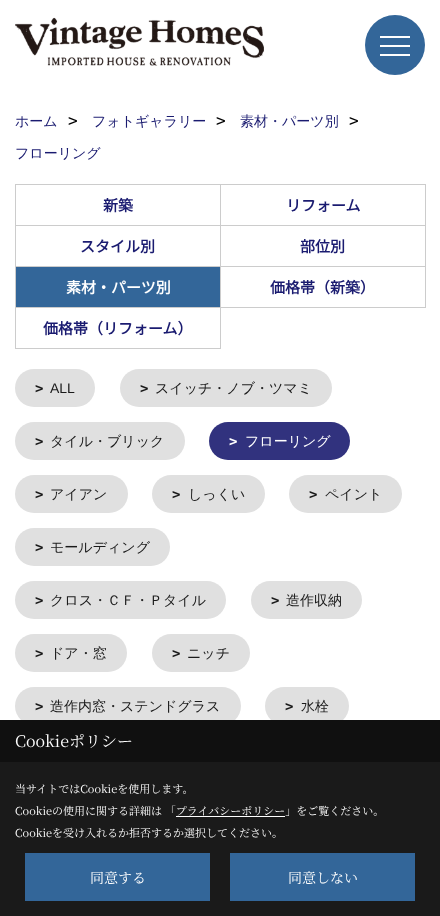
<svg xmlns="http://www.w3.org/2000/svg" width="440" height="916">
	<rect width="100%" height="100%" fill="#FFFFFF" />
	<image x="15" y="17" width="249" height="49" href="assets/img1.png" />
	<circle cx="395" cy="45" r="30" fill="#336699" />
	<rect x="380" y="36" width="30" height="2" fill="#FFFFFF" />
	<rect x="380" y="45" width="30" height="2" fill="#FFFFFF" />
	<rect x="380" y="54" width="30" height="2" fill="#FFFFFF" />
	<text x="15" y="126" font-family="WenQuanYi Zen Hei" font-size="14" font-weight="500" fill="#1A1B70">ホーム</text>
	<text x="68" y="126" font-family="DejaVu Sans Mono" font-size="16" fill="#000000">&gt;</text>
	<text x="92" y="126" font-family="WenQuanYi Zen Hei" font-size="14" font-weight="500" fill="#1A1B70">フォトギャラリー</text>
	<text x="216" y="126" font-family="DejaVu Sans Mono" font-size="16" fill="#000000">&gt;</text>
	<text x="240" y="126" font-family="WenQuanYi Zen Hei" font-size="14" font-weight="500" fill="#1A1B70">素材・パーツ別</text>
	<text x="349" y="126" font-family="DejaVu Sans Mono" font-size="16" fill="#000000">&gt;</text>
	<text x="15" y="158" font-family="WenQuanYi Zen Hei" font-size="14" font-weight="500" fill="#1A1B70">フローリング</text>
	<rect x="15" y="184" width="411" height="1" fill="#CCCCCC" />
	<rect x="15" y="184" width="1" height="165" fill="#CCCCCC" />
	<rect x="220" y="185" width="1" height="164" fill="#CCCCCC" />
	<rect x="16" y="225" width="205" height="1" fill="#CCCCCC" />
	<text x="103" y="211" font-family="Noto Sans JP" font-size="15" font-weight="700" fill="#1A1B70">新築</text>
	<rect x="425" y="185" width="1" height="123" fill="#CCCCCC" />
	<rect x="221" y="225" width="205" height="1" fill="#CCCCCC" />
	<text x="286" y="211" font-family="Noto Sans JP" font-size="15" font-weight="700" fill="#1A1B70">リフォーム</text>
	<rect x="16" y="266" width="410" height="1" fill="#CCCCCC" />
	<g font-family="Noto Sans JP" font-size="15" font-weight="700" fill="#1A1B70">
		<text x="80" y="252">スタイル別</text>
		<text x="300" y="252">部位別</text>
	</g>
	<rect x="16" y="307" width="410" height="1" fill="#CCCCCC" />
	<rect x="16" y="267" width="204" height="40" fill="#336699" />
	<text x="66" y="293" font-family="Noto Sans JP" font-size="15" font-weight="700" fill="#FFFFFF">素材・パーツ別</text>
	<text x="270" y="293" font-family="Noto Sans JP" font-size="15" font-weight="700" fill="#1A1B70">価格帯（新築）</text>
	<rect x="16" y="348" width="205" height="1" fill="#CCCCCC" />
	<text x="43" y="334" font-family="Noto Sans JP" font-size="15" font-weight="700" fill="#1A1B70">価格帯（リフォーム）</text>
	<rect x="15" y="369" width="80" height="38" rx="19" fill="#E0E0E0" />
	<text x="35" y="393" font-family="DejaVu Sans Mono" font-size="14" font-weight="700" fill="#1A1A1A">&gt;</text>
	<text x="50" y="393" font-family="Liberation Sans" font-size="14" fill="#1A1A1A">ALL</text>
	<rect x="120" y="369" width="212" height="38" rx="19" fill="#E0E0E0" />
	<text x="140" y="393" font-family="DejaVu Sans Mono" font-size="14" font-weight="700" fill="#1A1A1A">&gt;</text>
	<text x="155" y="393" font-family="WenQuanYi Zen Hei" font-size="14" font-weight="500" fill="#1A1A1A">スイッチ・ノブ・ツマミ</text>
	<rect x="15" y="422" width="170" height="38" rx="19" fill="#E0E0E0" />
	<text x="35" y="446" font-family="DejaVu Sans Mono" font-size="14" font-weight="700" fill="#1A1A1A">&gt;</text>
	<text x="50" y="446" font-family="WenQuanYi Zen Hei" font-size="14" font-weight="500" fill="#1A1A1A">タイル・ブリック</text>
	<rect x="209" y="422" width="141" height="38" rx="19" fill="#31327E" />
	<text x="229" y="446" font-family="DejaVu Sans Mono" font-size="14" font-weight="700" fill="#FFFFFF">&gt;</text>
	<text x="245" y="446" font-family="WenQuanYi Zen Hei" font-size="14" font-weight="500" fill="#FFFFFF">フローリング</text>
	<rect x="15" y="475" width="113" height="38" rx="19" fill="#E0E0E0" />
	<text x="35" y="499" font-family="DejaVu Sans Mono" font-size="14" font-weight="700" fill="#1A1A1A">&gt;</text>
	<text x="50" y="499" font-family="WenQuanYi Zen Hei" font-size="14" font-weight="500" fill="#1A1A1A">アイアン</text>
	<rect x="152" y="475" width="113" height="38" rx="19" fill="#E0E0E0" />
	<text x="172" y="499" font-family="DejaVu Sans Mono" font-size="14" font-weight="700" fill="#1A1A1A">&gt;</text>
	<text x="188" y="499" font-family="WenQuanYi Zen Hei" font-size="14" font-weight="500" fill="#1A1A1A">しっくい</text>
	<rect x="289" y="475" width="113" height="38" rx="19" fill="#E0E0E0" />
	<text x="309" y="499" font-family="DejaVu Sans Mono" font-size="14" font-weight="700" fill="#1A1A1A">&gt;</text>
	<text x="325" y="499" font-family="WenQuanYi Zen Hei" font-size="14" font-weight="500" fill="#1A1A1A">ペイント</text>
	<rect x="15" y="528" width="155" height="38" rx="19" fill="#E0E0E0" />
	<text x="35" y="552" font-family="DejaVu Sans Mono" font-size="14" font-weight="700" fill="#1A1A1A">&gt;</text>
	<text x="50" y="552" font-family="WenQuanYi Zen Hei" font-size="14" font-weight="500" fill="#1A1A1A">モールディング</text>
	<rect x="15" y="581" width="211" height="38" rx="19" fill="#E0E0E0" />
	<text x="35" y="605" font-family="DejaVu Sans Mono" font-size="14" font-weight="700" fill="#1A1A1A">&gt;</text>
	<text x="50" y="605" font-family="WenQuanYi Zen Hei" font-size="14" font-weight="500" fill="#1A1A1A">クロス・ＣＦ・Ｐタイル</text>
	<rect x="251" y="581" width="111" height="38" rx="19" fill="#E0E0E0" />
	<text x="271" y="605" font-family="DejaVu Sans Mono" font-size="14" font-weight="700" fill="#1A1A1A">&gt;</text>
	<text x="286" y="605" font-family="WenQuanYi Zen Hei" font-size="14" font-weight="500" fill="#1A1A1A">造作収納</text>
	<rect x="15" y="634" width="112" height="38" rx="19" fill="#E0E0E0" />
	<text x="35" y="658" font-family="DejaVu Sans Mono" font-size="14" font-weight="700" fill="#1A1A1A">&gt;</text>
	<text x="50" y="658" font-family="WenQuanYi Zen Hei" font-size="14" font-weight="500" fill="#1A1A1A">ドア・窓</text>
	<rect x="152" y="634" width="98" height="38" rx="19" fill="#E0E0E0" />
	<text x="172" y="658" font-family="DejaVu Sans Mono" font-size="14" font-weight="700" fill="#1A1A1A">&gt;</text>
	<text x="187" y="658" font-family="WenQuanYi Zen Hei" font-size="14" font-weight="500" fill="#1A1A1A">ニッチ</text>
	<rect x="15" y="687" width="226" height="38" rx="19" fill="#E0E0E0" />
	<text x="35" y="711" font-family="DejaVu Sans Mono" font-size="14" font-weight="700" fill="#1A1A1A">&gt;</text>
	<text x="50" y="711" font-family="WenQuanYi Zen Hei" font-size="14" font-weight="500" fill="#1A1A1A">造作内窓・ステンドグラス</text>
	<rect x="265" y="687" width="84" height="38" rx="19" fill="#E0E0E0" />
	<text x="285" y="711" font-family="DejaVu Sans Mono" font-size="14" font-weight="700" fill="#1A1A1A">&gt;</text>
	<text x="301" y="711" font-family="WenQuanYi Zen Hei" font-size="14" font-weight="500" fill="#1A1A1A">水栓</text>
	<rect x="0" y="720" width="440" height="42" fill="#101010" />
	<text x="15" y="747" font-family="Noto Serif JP" font-size="16" font-weight="200" fill="#FFFFFF">Cookieポリシー</text>
	<rect x="0" y="762" width="440" height="154" fill="#1A1A1A" />
	<g font-family="Noto Serif JP" font-size="11" font-weight="200" fill="#FFFFFF">
		<text x="15" y="793">当サイトではCookieを使用します。</text>
		<text x="15" y="815">Cookieの使用に関する詳細は 「プライバシーポリシー」をご覧ください。</text>
	</g>
	<rect x="176" y="816" width="109" height="1" fill="#FFFFFF" />
	<text x="15" y="837" font-family="Noto Serif JP" font-size="11" font-weight="200" fill="#FFFFFF">Cookieを受け入れるか拒否するか選択してください。</text>
	<rect x="25" y="853" width="185" height="48" fill="#336699" />
	<text x="90" y="883" font-family="Noto Serif JP" font-size="14" font-weight="200" fill="#FFFFFF">同意する</text>
	<rect x="230" y="853" width="185" height="48" fill="#336699" />
	<text x="288" y="883" font-family="Noto Serif JP" font-size="14" font-weight="200" fill="#FFFFFF">同意しない</text>
</svg>
